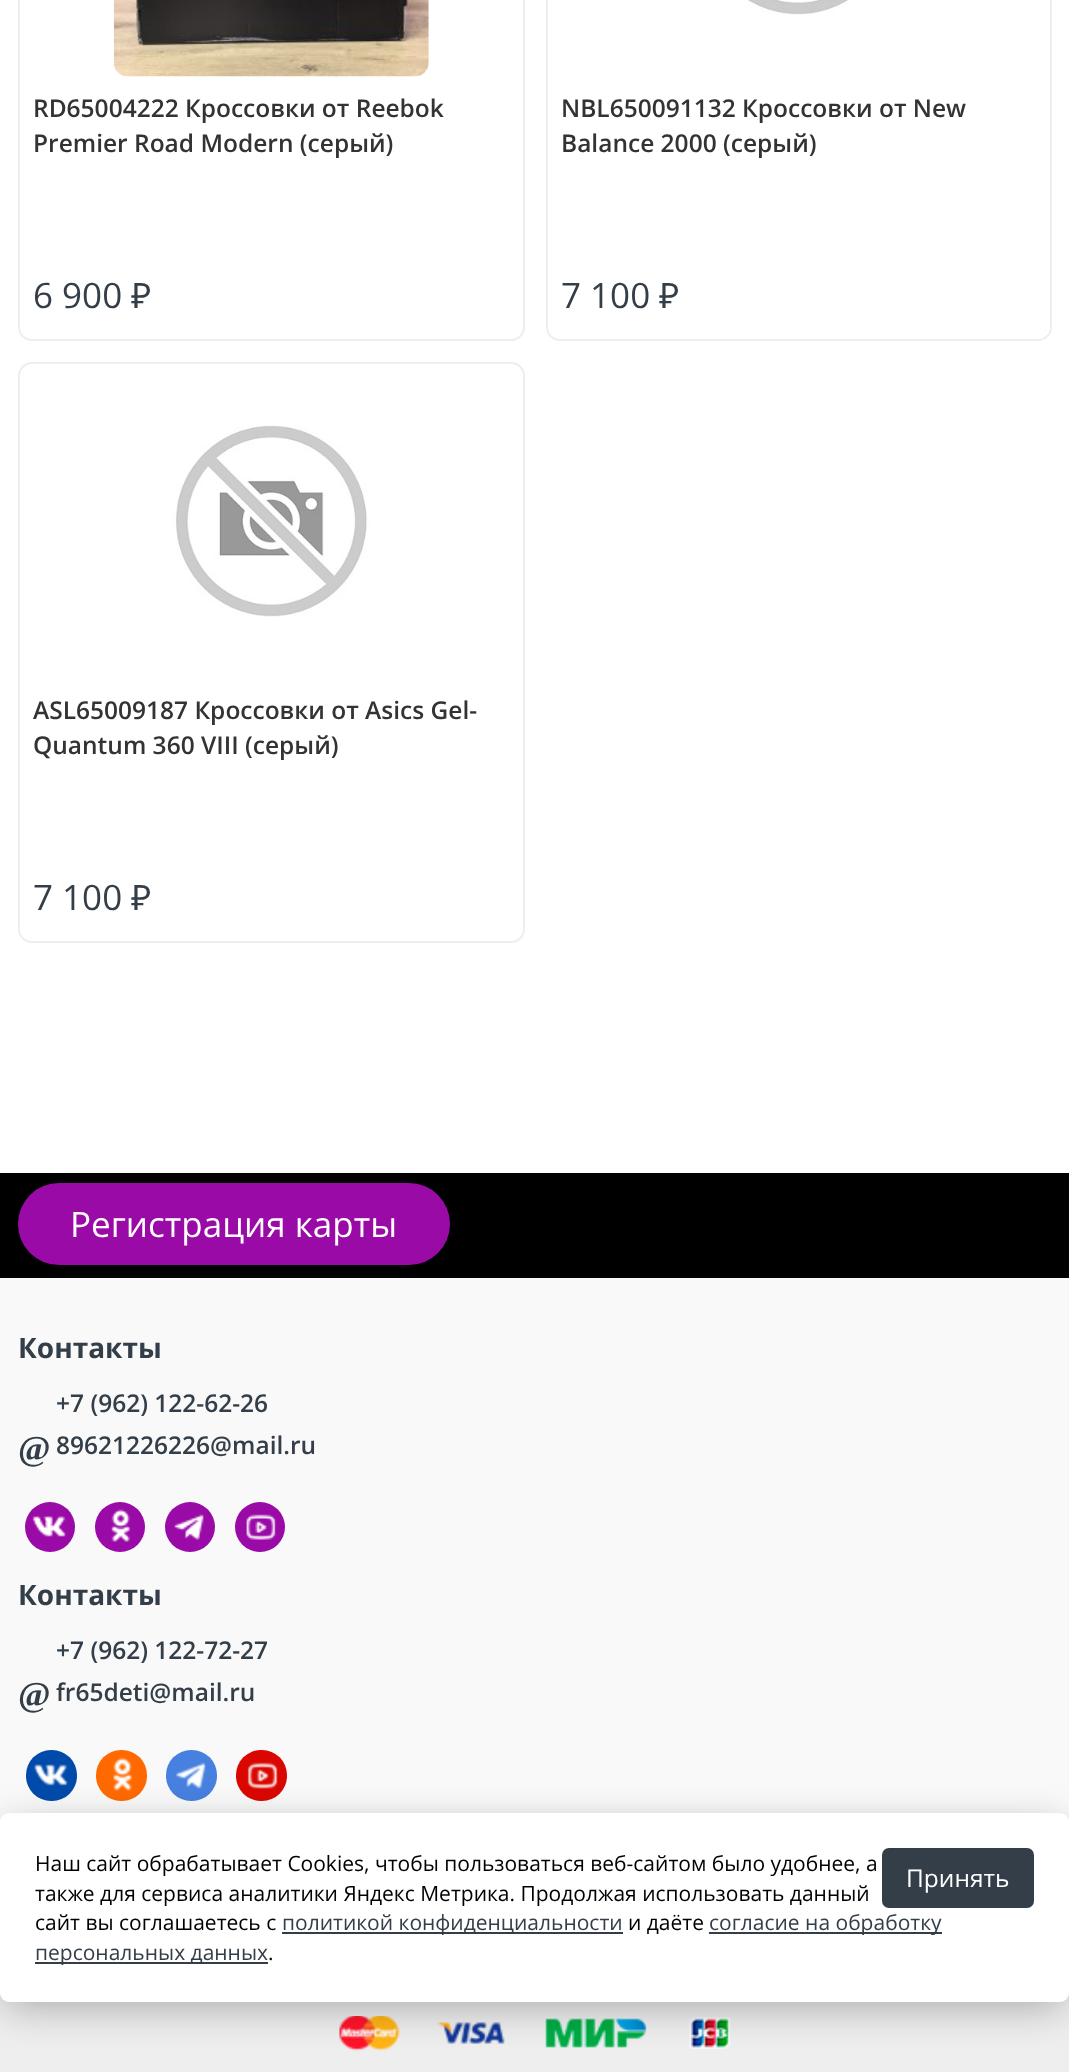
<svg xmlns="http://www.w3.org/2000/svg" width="1069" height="2072">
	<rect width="100%" height="100%" fill="#FFFFFF" />
	<rect x="19" y="-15" width="505" height="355" rx="13" fill="none" stroke="#EEEEEE" stroke-width="2" />
	<image x="113" y="0" width="316" height="77" href="assets/img1.png" />
	<g font-family="Open Sans" font-size="24.5" font-weight="600" fill="#333333">
		<text x="33" y="117">RD65004222 Кроссовки от Reebok</text>
		<text x="33" y="152">Premier Road Modern (серый)</text>
	</g>
	<text x="33" y="308" font-family="Open Sans" font-size="35" fill="#333E48">6 900</text>
	<text x="131" y="308" font-family="Noto Sans" font-size="35" fill="#333E48">₽</text>
	<rect x="547" y="-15" width="504" height="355" rx="13" fill="none" stroke="#EEEEEE" stroke-width="2" />
	<image x="735" y="0" width="113" height="15" href="assets/img2.png" />
	<g font-family="Open Sans" font-size="24.5" font-weight="600" fill="#333333">
		<text x="561" y="117">NBL650091132 Кроссовки от New</text>
		<text x="561" y="152">Balance 2000 (серый)</text>
	</g>
	<text x="561" y="308" font-family="Open Sans" font-size="35" fill="#333E48">7 100</text>
	<text x="659" y="308" font-family="Noto Sans" font-size="35" fill="#333E48">₽</text>
	<rect x="19" y="363" width="505" height="579" rx="13" fill="none" stroke="#EEEEEE" stroke-width="2" />
	<image x="127" y="363" width="288" height="254" href="assets/img3.png" />
	<g font-family="Open Sans" font-size="24.5" font-weight="600" fill="#333333">
		<text x="33" y="719">ASL65009187 Кроссовки от Asics Gel-</text>
		<text x="33" y="754">Quantum 360 VIII (серый)</text>
	</g>
	<text x="33" y="910" font-family="Open Sans" font-size="35" fill="#333E48">7 100</text>
	<text x="131" y="910" font-family="Noto Sans" font-size="35" fill="#333E48">₽</text>
	<rect x="0" y="1278" width="1069" height="544" fill="#F9F9F9" />
	<rect x="0" y="1173" width="1069" height="105" fill="#000000" />
	<rect x="18" y="1183" width="432" height="82" rx="41" fill="#9A0AA7" />
	<text x="70" y="1237" font-family="Open Sans" font-size="35" fill="#FFFFFF">Регистрация карты</text>
	<text x="18" y="1358" font-family="Open Sans" font-size="28" font-weight="700" fill="#333E48">Контакты</text>
	<text x="56" y="1412" font-family="Open Sans" font-size="24.5" font-weight="600" fill="#333E48">+7 (962) 122-62-26</text>
	<text x="18" y="1460" font-family="Liberation Serif" font-size="35" font-weight="700" fill="#333E48">@</text>
	<text x="56" y="1454" font-family="Open Sans" font-size="24.5" font-weight="600" fill="#333E48">89621226226@mail.ru</text>
	<circle cx="50" cy="1527" r="25" fill="#9A0AA7" />
	<image x="32" y="1516" width="34" height="21" href="assets/img4.png" />
	<circle cx="120" cy="1527" r="25" fill="#9A0AA7" />
	<image x="111" y="1509" width="19" height="33" href="assets/img5.png" />
	<circle cx="190" cy="1527" r="25" fill="#9A0AA7" />
	<image x="174" y="1514" width="30" height="26" href="assets/img6.png" />
	<circle cx="260" cy="1527" r="25" fill="#9A0AA7" />
	<image x="246" y="1514" width="30" height="26" href="assets/img7.png" />
	<text x="18" y="1605" font-family="Open Sans" font-size="28" font-weight="700" fill="#333E48">Контакты</text>
	<text x="56" y="1659" font-family="Open Sans" font-size="24.5" font-weight="600" fill="#333E48">+7 (962) 122-72-27</text>
	<text x="18" y="1706" font-family="Liberation Serif" font-size="35" font-weight="700" fill="#333E48">@</text>
	<text x="56" y="1701" font-family="Open Sans" font-size="24.5" font-weight="600" fill="#333E48">fr65deti@mail.ru</text>
	<rect x="26" y="1750" width="51" height="51" rx="25" fill="#004BAA" />
	<image x="34" y="1764" width="34" height="22" href="assets/img8.png" />
	<rect x="96" y="1750" width="51" height="51" rx="25" fill="#FF6900" />
	<image x="113" y="1757" width="20" height="34" href="assets/img9.png" />
	<rect x="166" y="1750" width="51" height="51" rx="25" fill="#4880E0" />
	<image x="176" y="1762" width="30" height="27" href="assets/img10.png" />
	<rect x="236" y="1750" width="51" height="51" rx="25" fill="#DA0700" />
	<image x="247" y="1762" width="31" height="27" href="assets/img11.png" />
	<rect x="0" y="1993" width="1069" height="79" fill="#EEEEEE" />
	<image x="339" y="2016" width="391" height="35" href="assets/img12.png" />
	<rect x="5" y="1827" width="1059" height="179" rx="4" fill="#000000" fill-opacity="0.3" filter="blur(20px)" />
	<rect x="0" y="1813" width="1069" height="189" rx="9" fill="#FFFFFF" />
	<text x="35" y="1871" font-family="Open Sans" font-size="21" fill="#000000">Наш сайт обрабатывает Cookies, чтобы пользоваться веб-сайтом было удобнее, а</text>
	<rect x="882" y="1848" width="152" height="60" rx="7" fill="#333E48" />
	<text x="906" y="1887" font-family="Open Sans" font-size="24.5" fill="#FFFFFF">Принять</text>
	<g font-family="Open Sans" font-size="21" fill="#000000">
		<text x="35" y="1901">также для сервиса аналитики Яндекс Метрика. Продолжая использовать данный</text>
		<text x="35" y="1930">сайт вы соглашаетесь с</text>
	</g>
	<rect x="282" y="1932" width="341" height="2" fill="#333E48" />
	<text x="282" y="1930" font-family="Open Sans" font-size="21" fill="#333E48">политикой конфиденциальности</text>
	<text x="628" y="1930" font-family="Open Sans" font-size="21" fill="#000000">и даёте</text>
	<rect x="709" y="1932" width="233" height="2" fill="#333E48" />
	<text x="709" y="1930" font-family="Open Sans" font-size="21" fill="#333E48">согласие на обработку</text>
	<rect x="35" y="1962" width="233" height="2" fill="#333E48" />
	<text x="35" y="1960" font-family="Open Sans" font-size="21" fill="#333E48">персональных данных</text>
	<text x="268" y="1960" font-family="Open Sans" font-size="21" fill="#000000">.</text>
</svg>
